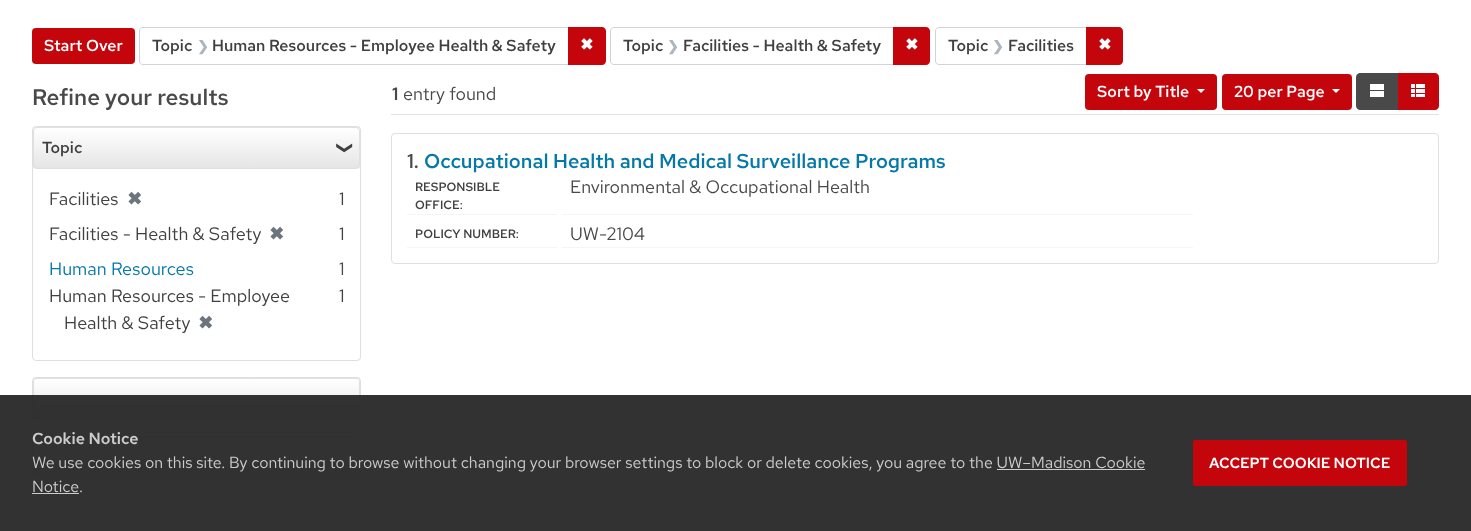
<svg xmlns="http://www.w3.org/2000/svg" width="1471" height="531">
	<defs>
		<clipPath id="clip1"><rect x="33" y="127" width="327" height="42" rx="4" /></clipPath>
		<linearGradient id="g1" gradientUnits="userSpaceOnUse" x1="197" y1="128" x2="197" y2="168"><stop offset="0" stop-color="#FFFFFF" /><stop offset="1" stop-color="#E5E5E5" /></linearGradient>
		<clipPath id="clip2"><rect x="33" y="378" width="327" height="41" rx="4" /></clipPath>
		<linearGradient id="g2" gradientUnits="userSpaceOnUse" x1="197" y1="379" x2="197" y2="419"><stop offset="0" stop-color="#FFFFFF" /><stop offset="1" stop-color="#E5E5E5" /></linearGradient>
		<clipPath id="clip3"><rect x="33" y="437" width="327" height="41" rx="4" /></clipPath>
		<linearGradient id="g3" gradientUnits="userSpaceOnUse" x1="197" y1="438" x2="197" y2="478"><stop offset="0" stop-color="#FFFFFF" /><stop offset="1" stop-color="#E5E5E5" /></linearGradient>
	</defs>
	<rect width="100%" height="100%" fill="#FFFFFF" />
	<rect x="32" y="28" width="103" height="36" rx="4" fill="#C5050C" />
	<text x="44" y="51" font-family="Red Hat Text" font-size="16" font-weight="600" fill="#FFFFFF">Start Over</text>
	<path d="M143 27.5H568.5V64.5H143C141 64.5 139.5 63 139.5 61V31C139.5 29 141 27.5 143 27.5Z" fill="none" stroke="#CED4DA" />
	<text x="152" y="51" font-family="Red Hat Text" font-size="16" font-weight="600" fill="#404040">Topic</text>
	<text x="197" y="51" font-family="DejaVu Sans" font-size="14" font-weight="700" fill="#ADB5BD">❯</text>
	<text x="212" y="51" font-family="Red Hat Text" font-size="16" font-weight="600" fill="#404040">Human Resources - Employee Health &amp; Safety</text>
	<path d="M568 27H602C604 27 606 29 606 31V61C606 63 604 65 602 65H568Z" fill="#C5050C" />
	<text x="580" y="50" font-family="DejaVu Sans" font-size="16" font-weight="700" fill="#FFFFFF">✖</text>
	<path d="M614 27.5H893.5V64.5H614C612 64.5 610.5 63 610.5 61V31C610.5 29 612 27.5 614 27.5Z" fill="none" stroke="#CED4DA" />
	<text x="623" y="51" font-family="Red Hat Text" font-size="16" font-weight="600" fill="#404040">Topic</text>
	<text x="667" y="51" font-family="DejaVu Sans" font-size="14" font-weight="700" fill="#ADB5BD">❯</text>
	<text x="683" y="51" font-family="Red Hat Text" font-size="16" font-weight="600" fill="#404040">Facilities - Health &amp; Safety</text>
	<path d="M893 27H926C928 27 930 29 930 31V61C930 63 928 65 926 65H893Z" fill="#C5050C" />
	<text x="905" y="50" font-family="DejaVu Sans" font-size="16" font-weight="700" fill="#FFFFFF">✖</text>
	<path d="M939 27.5H1086.5V64.5H939C937 64.5 935.5 63 935.5 61V31C935.5 29 937 27.5 939 27.5Z" fill="none" stroke="#CED4DA" />
	<text x="948" y="51" font-family="Red Hat Text" font-size="16" font-weight="600" fill="#404040">Topic</text>
	<text x="992" y="51" font-family="DejaVu Sans" font-size="14" font-weight="700" fill="#ADB5BD">❯</text>
	<text x="1008" y="51" font-family="Red Hat Text" font-size="16" font-weight="600" fill="#404040">Facilities</text>
	<path d="M1086 27H1119C1121 27 1123 29 1123 31V61C1123 63 1121 65 1119 65H1086Z" fill="#C5050C" />
	<text x="1098" y="50" font-family="DejaVu Sans" font-size="16" font-weight="700" fill="#FFFFFF">✖</text>
	<text x="32" y="105" font-family="Red Hat Text" font-size="22.5" font-weight="500" fill="#494949">Refine your results</text>
	<rect x="32.5" y="126.5" width="328" height="234" rx="3.5" fill="none" stroke="#DFDFDF" />
	<rect x="33" y="127" width="327" height="42" fill="#000000" fill-opacity="0.03" />
	<g clip-path="url(#clip1)">
		<rect x="33" y="128" width="327" height="40" fill="url(#g1)" />
	</g>
	<rect x="33.5" y="127.5" width="326" height="41" rx="3.5" fill="none" stroke="#E0E0E0" />
	<text x="42" y="153" font-family="Red Hat Text" font-size="16" font-weight="500" fill="#404040">Topic</text>
	<text x="340" y="141" transform="rotate(90 340 141)" font-family="DejaVu Sans" font-size="16" fill="#404040">❯</text>
	<text x="49" y="205" font-family="Red Hat Text" font-size="18" fill="#404040">Facilities</text>
	<text x="127" y="205" font-family="DejaVu Sans" font-size="18" font-weight="700" fill="#6C757D">✖</text>
	<g font-family="Red Hat Text" font-size="18" fill="#404040">
		<text x="339" y="205">1</text>
		<text x="49" y="240">Facilities - Health &amp; Safety</text>
	</g>
	<text x="269" y="240" font-family="DejaVu Sans" font-size="18" font-weight="700" fill="#6C757D">✖</text>
	<text x="339" y="240" font-family="Red Hat Text" font-size="18" fill="#404040">1</text>
	<text x="49" y="275" font-family="Red Hat Text" font-size="18" fill="#0479A8">Human Resources</text>
	<text x="339" y="275" font-family="Red Hat Text" font-size="18" fill="#494949">1</text>
	<g font-family="Red Hat Text" font-size="18" fill="#404040">
		<text x="49" y="302">Human Resources - Employee</text>
		<text x="64" y="329">Health &amp; Safety</text>
	</g>
	<text x="198" y="329" font-family="DejaVu Sans" font-size="18" font-weight="700" fill="#6C757D">✖</text>
	<text x="339" y="302" font-family="Red Hat Text" font-size="18" fill="#404040">1</text>
	<rect x="32.5" y="377.5" width="328" height="42" rx="3.5" fill="none" stroke="#DFDFDF" />
	<rect x="33" y="378" width="327" height="41" fill="#000000" fill-opacity="0.03" />
	<g clip-path="url(#clip2)">
		<path d="M33 379H360V415C360 417 358 419 356 419H37C35 419 33 417 33 415Z" fill="url(#g2)" />
	</g>
	<path d="M37 378H356C358 378 360 380 360 382V415C360 417 358 419 356 419H37C35 419 33 417 33 415V382C33 380 35 378 37 378ZM37 379H356C358 379 359 380 359 382V415C359 417 358 419 356 419H37C35 419 34 417 34 415V382C34 380 35 379 37 379Z" fill="#E0E0E0" fill-rule="evenodd" />
	<rect x="32.5" y="436.5" width="328" height="42" rx="3.5" fill="none" stroke="#DFDFDF" />
	<rect x="33" y="437" width="327" height="41" fill="#000000" fill-opacity="0.03" />
	<g clip-path="url(#clip3)">
		<path d="M33 438H360V474C360 476 358 478 356 478H37C35 478 33 476 33 474Z" fill="url(#g3)" />
	</g>
	<path d="M37 437H356C358 437 360 439 360 441V474C360 476 358 478 356 478H37C35 478 33 476 33 474V441C33 439 35 437 37 437ZM37 438H356C358 438 359 439 359 441V474C359 476 358 478 356 478H37C35 478 34 476 34 474V441C34 439 35 438 37 438Z" fill="#E0E0E0" fill-rule="evenodd" />
	<rect x="391" y="114" width="1048" height="1" fill="#DEE2E6" />
	<text x="392" y="100" font-family="'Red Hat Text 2'" font-size="18" font-weight="600" fill="#494949">1</text>
	<text x="403" y="100" font-family="Red Hat Text" font-size="18" fill="#494949">entry found</text>
	<rect x="1085" y="74" width="132" height="36" rx="4" fill="#C5050C" />
	<text x="1097" y="97" font-family="Red Hat Text" font-size="16" font-weight="600" fill="#FFFFFF">Sort by Title</text>
	<path d="M1197 89H1205L1201 93Z" fill="#FFFFFF" />
	<rect x="1222" y="74" width="130" height="36" rx="4" fill="#C5050C" />
	<text x="1234" y="97" font-family="Red Hat Text" font-size="16" font-weight="600" fill="#FFFFFF">20 per Page</text>
	<path d="M1332 89H1340L1336 93Z" fill="#FFFFFF" />
	<path d="M1397 73H1435C1437 73 1439 75 1439 77V106C1439 108 1437 110 1435 110H1397Z" fill="#C5050C" />
	<path d="M1360 73H1398V110H1360C1358 110 1356 108 1356 106V77C1356 75 1358 73 1360 73Z" fill="#494949" />
	<image x="1370" y="84" width="14" height="13" href="assets/img1.png" />
	<image x="1411" y="84" width="14" height="13" href="assets/img2.png" />
	<rect x="391.5" y="133.5" width="1047" height="130" rx="3.5" fill="none" stroke="#E0E0E0" />
	<text x="407" y="168" font-family="Red Hat Text" font-size="20" font-weight="500" fill="#494949">1.</text>
	<text x="424" y="168" font-family="Red Hat Text" font-size="20" font-weight="500" fill="#0479A8">Occupational Health and Medical Surveillance Programs</text>
	<rect x="407" y="214" width="150" height="1" fill="#F5F5F5" />
	<g font-family="Red Hat Text" font-size="12" font-weight="600" fill="#404040">
		<text x="415" y="191">RESPONSIBLE</text>
		<text x="415" y="209">OFFICE:</text>
	</g>
	<rect x="562" y="214" width="631" height="1" fill="#F5F5F5" />
	<text x="570" y="193" font-family="Red Hat Text" font-size="18" fill="#494949">Environmental &amp; Occupational Health</text>
	<rect x="407" y="247" width="150" height="1" fill="#F5F5F5" />
	<text x="415" y="238" font-family="Red Hat Text" font-size="12" font-weight="600" fill="#404040">POLICY NUMBER:</text>
	<rect x="562" y="247" width="631" height="1" fill="#F5F5F5" />
	<text x="570" y="240" font-family="Red Hat Text" font-size="18" fill="#494949">UW-2104</text>
	<rect x="0" y="395" width="1471" height="136" fill="#282728" fill-opacity="0.95" />
	<text x="32" y="444" font-family="'Red Hat Text 2'" font-size="16" font-weight="600" fill="#CCCCCC">Cookie Notice</text>
	<g font-family="Red Hat Text" font-size="16" fill="#CCCCCC">
		<text x="32" y="468">We use cookies on this site. By continuing to browse without changing your browser settings to block or delete cookies, you agree to the UW–Madison Cookie</text>
		<text x="32" y="492">Notice</text>
	</g>
	<rect x="997" y="469" width="148" height="1" fill="#CCCCCC" />
	<rect x="32" y="493" width="47" height="1" fill="#CCCCCC" />
	<text x="79" y="492" font-family="Red Hat Text" font-size="16" fill="#CCCCCC">.</text>
	<rect x="1193" y="440" width="214" height="46" rx="2" fill="#C5050C" />
	<text x="1209" y="468" font-family="'Red Hat Text 2'" font-size="14.75" font-weight="600" fill="#FFFFFF">ACCEPT COOKIE NOTICE</text>
</svg>
